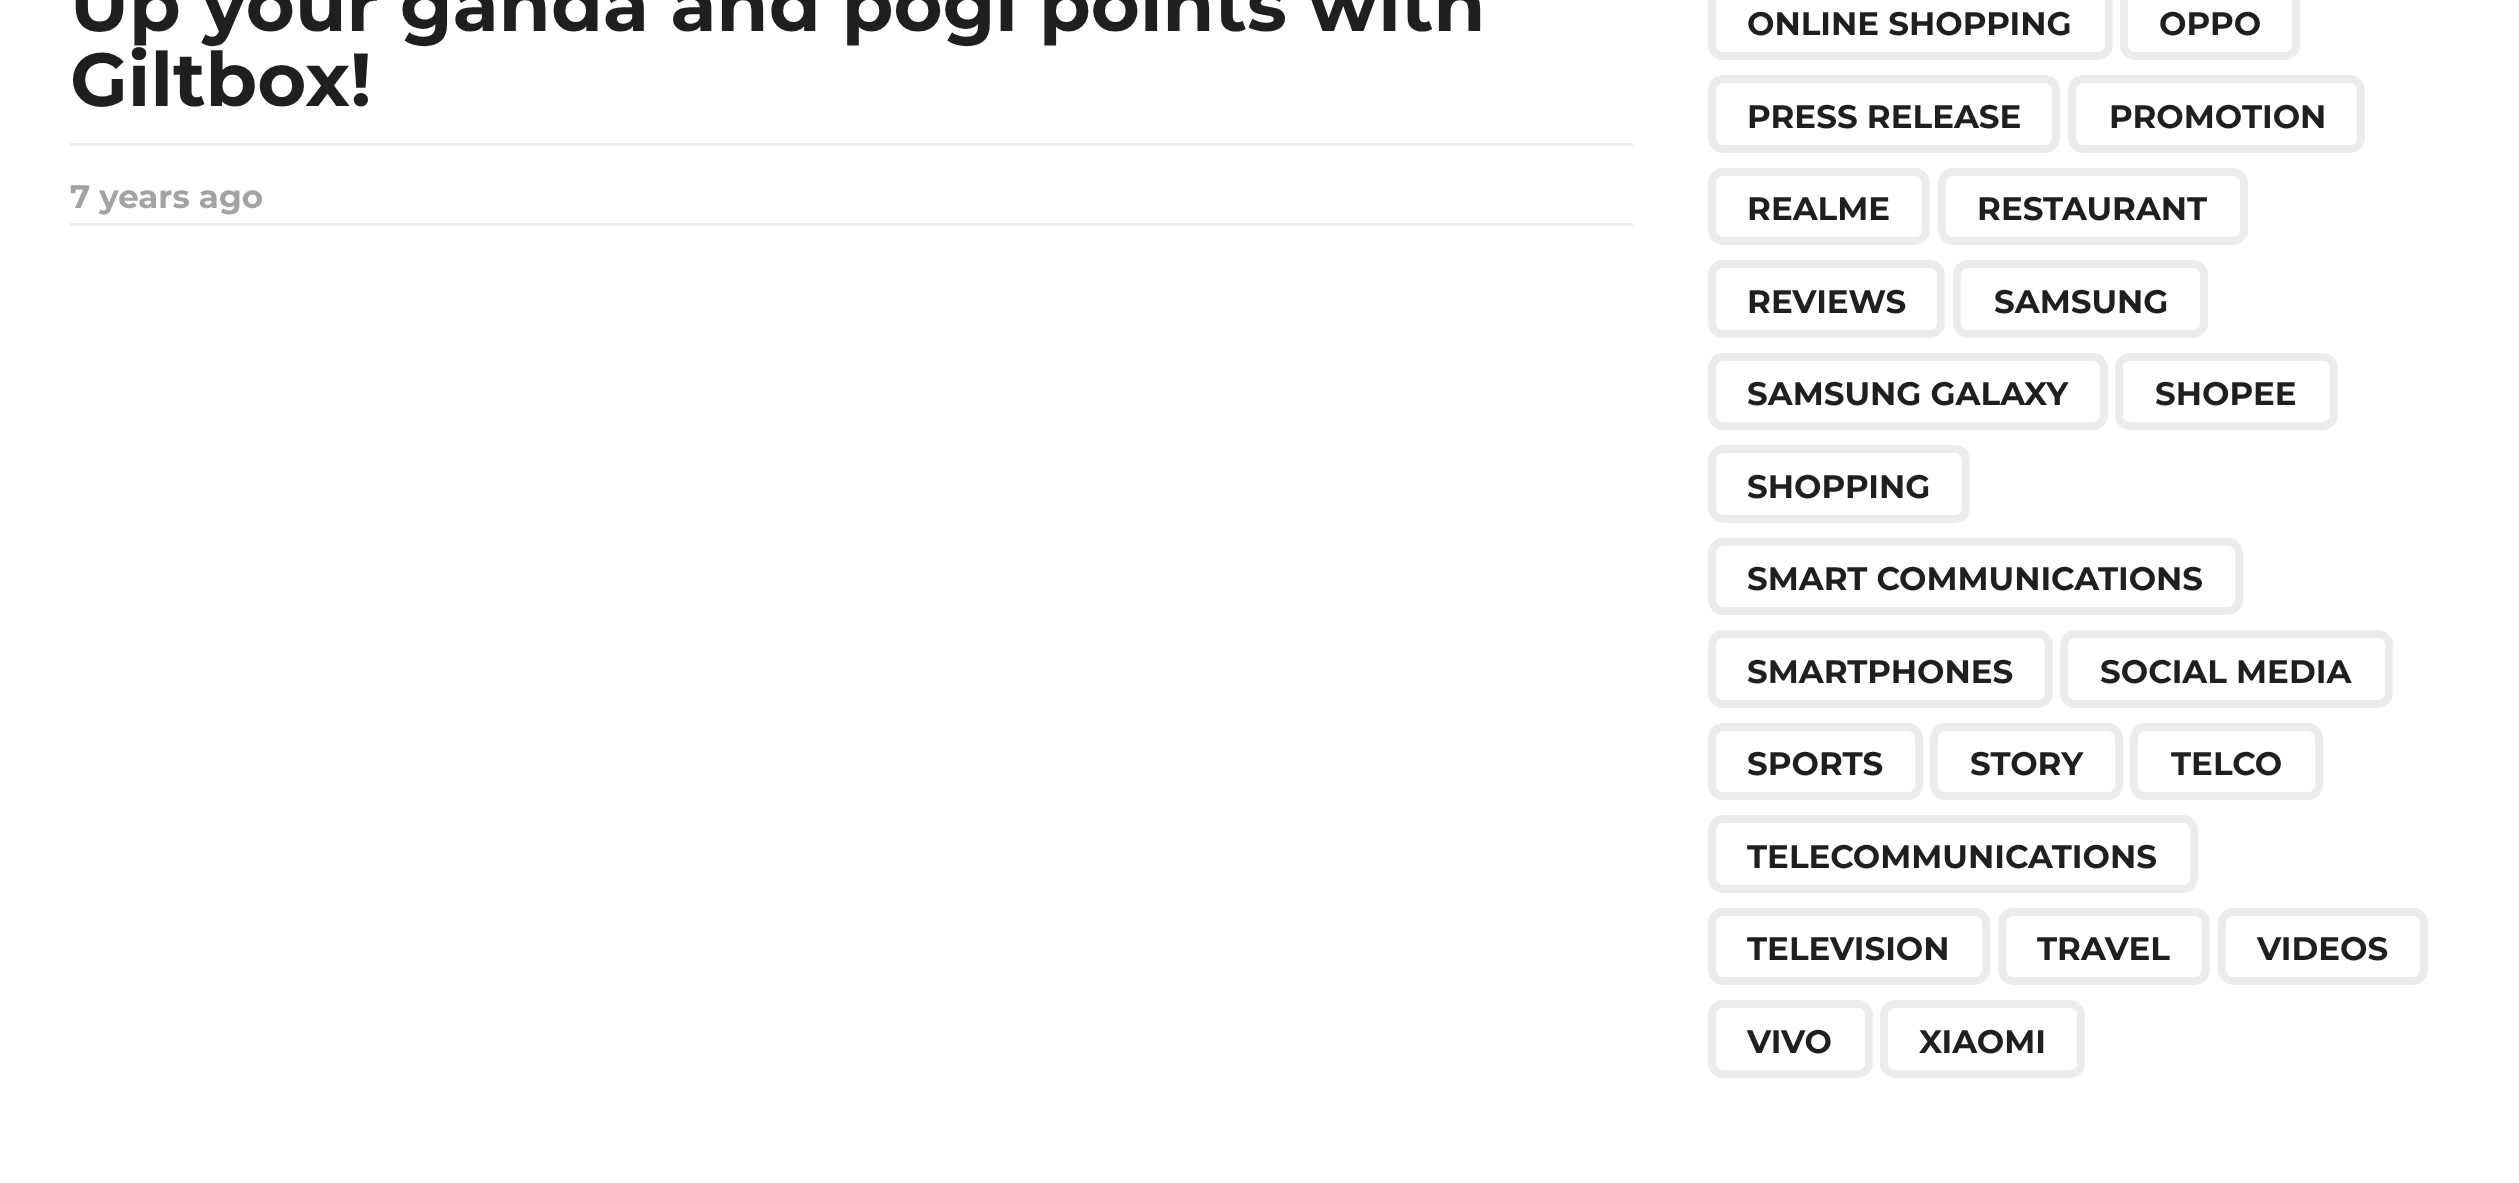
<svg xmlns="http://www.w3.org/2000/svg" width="2519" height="1183">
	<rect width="100%" height="100%" fill="#FFFFFF" />
	<g font-family="Montserrat" font-size="75" font-weight="700" fill="#1F1F1F">
		<text x="70" y="31">Up your ganda and pogi points with</text>
		<text x="70" y="106">Giltbox!</text>
	</g>
	<rect x="70" y="143" width="1563" height="3" fill="#ECECEC" />
	<text x="70" y="208" font-family="Montserrat" font-size="32.5" font-weight="700" fill="#A3A3A3">7 years ago</text>
	<rect x="70" y="223" width="1563" height="3" fill="#ECECEC" />
	<rect x="1712" y="-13" width="397" height="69" rx="11" fill="none" stroke="#ECECEC" stroke-width="8" />
	<text x="1747" y="35" font-family="Montserrat" font-size="32.5" font-weight="700" fill="#1F1F1F">ONLINE SHOPPING</text>
	<rect x="2124" y="-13" width="172" height="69" rx="11" fill="none" stroke="#ECECEC" stroke-width="8" />
	<text x="2159" y="35" font-family="Montserrat" font-size="32.5" font-weight="700" fill="#1F1F1F">OPPO</text>
	<rect x="1712" y="79" width="344" height="70" rx="11" fill="none" stroke="#ECECEC" stroke-width="8" />
	<text x="1747" y="128" font-family="Montserrat" font-size="32.5" font-weight="700" fill="#1F1F1F">PRESS RELEASE</text>
	<rect x="2072" y="79" width="289" height="70" rx="11" fill="none" stroke="#ECECEC" stroke-width="8" />
	<text x="2109" y="128" font-family="Montserrat" font-size="32.5" font-weight="700" fill="#1F1F1F">PROMOTION</text>
	<rect x="1712" y="172" width="214" height="69" rx="11" fill="none" stroke="#ECECEC" stroke-width="8" />
	<text x="1747" y="220" font-family="Montserrat" font-size="32.5" font-weight="700" fill="#1F1F1F">REALME</text>
	<rect x="1942" y="172" width="302" height="69" rx="11" fill="none" stroke="#ECECEC" stroke-width="8" />
	<text x="1977" y="220" font-family="Montserrat" font-size="32.5" font-weight="700" fill="#1F1F1F">RESTAURANT</text>
	<rect x="1712" y="264" width="229" height="70" rx="11" fill="none" stroke="#ECECEC" stroke-width="8" />
	<text x="1747" y="313" font-family="Montserrat" font-size="32.5" font-weight="700" fill="#1F1F1F">REVIEWS</text>
	<rect x="1957" y="264" width="247" height="70" rx="11" fill="none" stroke="#ECECEC" stroke-width="8" />
	<text x="1994" y="313" font-family="Montserrat" font-size="32.5" font-weight="700" fill="#1F1F1F">SAMSUNG</text>
	<rect x="1712" y="357" width="392" height="69" rx="11" fill="none" stroke="#ECECEC" stroke-width="8" />
	<text x="1747" y="405" font-family="Montserrat" font-size="32.5" font-weight="700" fill="#1F1F1F">SAMSUNG GALAXY</text>
	<rect x="2119" y="357" width="215" height="69" rx="11" fill="none" stroke="#ECECEC" stroke-width="8" />
	<text x="2155" y="405" font-family="Montserrat" font-size="32.5" font-weight="700" fill="#1F1F1F">SHOPEE</text>
	<rect x="1712" y="449" width="254" height="70" rx="11" fill="none" stroke="#ECECEC" stroke-width="8" />
	<text x="1747" y="498" font-family="Montserrat" font-size="32.5" font-weight="700" fill="#1F1F1F">SHOPPING</text>
	<rect x="1712" y="542" width="527" height="69" rx="11" fill="none" stroke="#ECECEC" stroke-width="8" />
	<text x="1747" y="590" font-family="Montserrat" font-size="32.5" font-weight="700" fill="#1F1F1F">SMART COMMUNICATIONS</text>
	<rect x="1712" y="634" width="337" height="70" rx="11" fill="none" stroke="#ECECEC" stroke-width="8" />
	<text x="1747" y="683" font-family="Montserrat" font-size="32.5" font-weight="700" fill="#1F1F1F">SMARTPHONES</text>
	<rect x="2064" y="634" width="325" height="70" rx="11" fill="none" stroke="#ECECEC" stroke-width="8" />
	<text x="2100" y="683" font-family="Montserrat" font-size="32.5" font-weight="700" fill="#1F1F1F">SOCIAL MEDIA</text>
	<rect x="1712" y="727" width="207" height="69" rx="11" fill="none" stroke="#ECECEC" stroke-width="8" />
	<text x="1747" y="775" font-family="Montserrat" font-size="32.5" font-weight="700" fill="#1F1F1F">SPORTS</text>
	<rect x="1934" y="727" width="185" height="69" rx="11" fill="none" stroke="#ECECEC" stroke-width="8" />
	<text x="1970" y="775" font-family="Montserrat" font-size="32.5" font-weight="700" fill="#1F1F1F">STORY</text>
	<rect x="2134" y="727" width="185" height="69" rx="11" fill="none" stroke="#ECECEC" stroke-width="8" />
	<text x="2171" y="775" font-family="Montserrat" font-size="32.5" font-weight="700" fill="#1F1F1F">TELCO</text>
	<rect x="1712" y="819" width="482" height="70" rx="11" fill="none" stroke="#ECECEC" stroke-width="8" />
	<text x="1747" y="868" font-family="Montserrat" font-size="32.5" font-weight="700" fill="#1F1F1F">TELECOMMUNICATIONS</text>
	<rect x="1712" y="912" width="274" height="69" rx="11" fill="none" stroke="#ECECEC" stroke-width="8" />
	<text x="1747" y="960" font-family="Montserrat" font-size="32.5" font-weight="700" fill="#1F1F1F">TELEVISION</text>
	<rect x="2002" y="912" width="204" height="69" rx="11" fill="none" stroke="#ECECEC" stroke-width="8" />
	<text x="2037" y="960" font-family="Montserrat" font-size="32.5" font-weight="700" fill="#1F1F1F">TRAVEL</text>
	<rect x="2222" y="912" width="202" height="69" rx="11" fill="none" stroke="#ECECEC" stroke-width="8" />
	<text x="2257" y="960" font-family="Montserrat" font-size="32.5" font-weight="700" fill="#1F1F1F">VIDEOS</text>
	<rect x="1712" y="1004" width="157" height="70" rx="11" fill="none" stroke="#ECECEC" stroke-width="8" />
	<text x="1747" y="1053" font-family="Montserrat" font-size="32.5" font-weight="700" fill="#1F1F1F">VIVO</text>
	<rect x="1884" y="1004" width="197" height="70" rx="11" fill="none" stroke="#ECECEC" stroke-width="8" />
	<text x="1919" y="1053" font-family="Montserrat" font-size="32.5" font-weight="700" fill="#1F1F1F">XIAOMI</text>
</svg>
